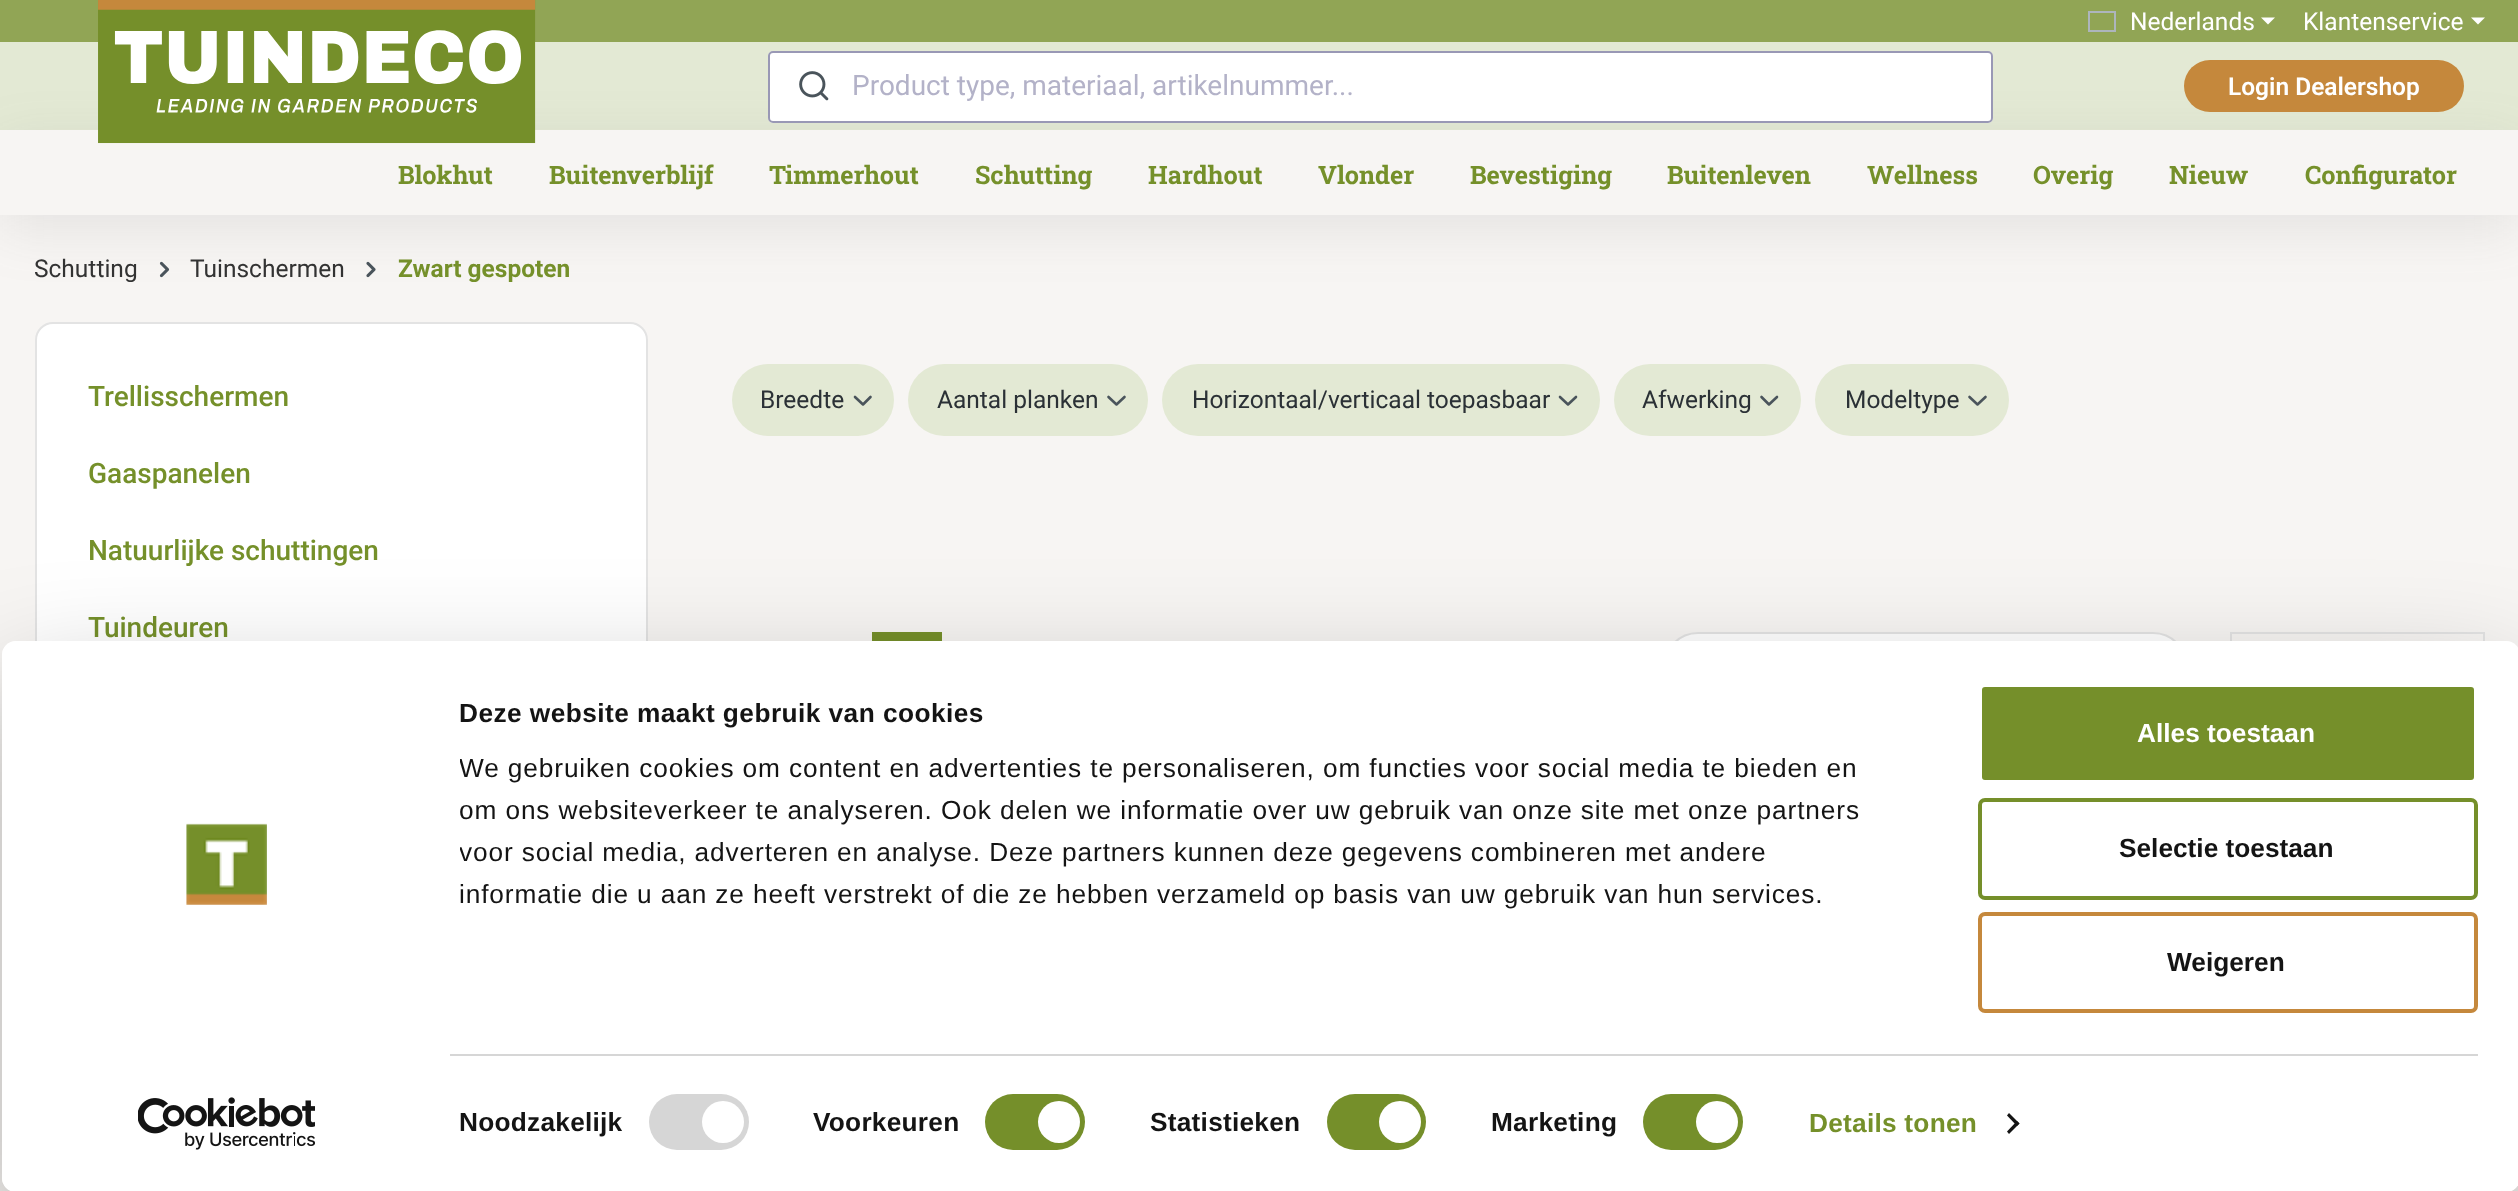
<svg xmlns="http://www.w3.org/2000/svg" width="2518" height="1191">
	<defs>
		<clipPath id="clip1"><path d="M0 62H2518V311H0ZM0 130H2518V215H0Z" clip-rule="evenodd" /></clipPath>
		<clipPath id="clip2"><path d="M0 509H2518V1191H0ZM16 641H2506C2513.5 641 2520 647.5 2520 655V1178C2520 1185.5 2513.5 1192 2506 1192H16C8.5 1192 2 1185.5 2 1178V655C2 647.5 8.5 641 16 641Z" clip-rule="evenodd" /></clipPath>
		<clipPath id="clip3"><rect x="460" y="693" width="1467" height="310" /></clipPath>
	</defs>
	<rect width="100%" height="100%" fill="#F7F5F3" />
	<rect x="0" y="42" width="2518" height="88" fill="#E3E9D4" />
	<rect x="0" y="0" width="2518" height="42" fill="#91A555" />
	<rect x="2089" y="12" width="26" height="19" fill="none" stroke="#ADB5BD" stroke-width="2" />
	<text x="2130" y="30" font-family="Roboto" font-size="24.5" fill="#FFFFFF">Nederlands</text>
	<path d="M2261 17.5H2275L2268 24.5Z" fill="#FFFFFF" />
	<text x="2303" y="30" font-family="Roboto" font-size="24.5" fill="#FFFFFF">Klantenservice</text>
	<path d="M2471 17.5H2485L2478 24.5Z" fill="#FFFFFF" />
	<g clip-path="url(#clip1)">
		<rect x="0" y="144" width="2518" height="85" fill="#646464" fill-opacity="0.12" filter="blur(27px)" />
	</g>
	<image x="98" y="0" width="438" height="144" href="assets/img1.png" />
	<rect x="768" y="51" width="1225" height="72" rx="5" fill="#FFFFFF" />
	<rect x="769" y="52" width="1223" height="70" rx="4" fill="none" stroke="#807EA3" stroke-opacity="0.8" stroke-width="2" />
	<image x="799" y="71" width="30" height="30" href="assets/img2.png" />
	<text x="852" y="95" font-family="Roboto" font-size="28" fill="#B3B2C8">Product type, materiaal, artikelnummer...</text>
	<rect x="2184" y="60" width="280" height="52" rx="26" fill="#C5883C" />
	<text x="2228" y="95" font-family="Roboto" font-size="24.5" font-weight="600" fill="#FFFFFF">Login Dealershop</text>
	<g font-family="Roboto Slab" font-size="25.25" font-weight="700" fill="#75902A">
		<text x="398" y="184">Blokhut</text>
		<text x="549" y="184">Buitenverblijf</text>
		<text x="769" y="184">Timmerhout</text>
		<text x="975" y="184">Schutting</text>
		<text x="1148" y="184">Hardhout</text>
		<text x="1318" y="184">Vlonder</text>
		<text x="1470" y="184">Bevestiging</text>
		<text x="1667" y="184">Buitenleven</text>
		<text x="1867" y="184">Wellness</text>
		<text x="2033" y="184">Overig</text>
		<text x="2169" y="184">Nieuw</text>
		<text x="2305" y="184">Configurator</text>
	</g>
	<text x="34" y="277" font-family="Roboto" font-size="24.5" fill="#333333">Schutting</text>
	<image x="159" y="261" width="11" height="17" href="assets/img3.png" />
	<text x="190" y="277" font-family="Roboto" font-size="24.5" fill="#333333">Tuinschermen</text>
	<image x="366" y="261" width="10" height="17" href="assets/img4.png" />
	<text x="398" y="277" font-family="Roboto" font-size="24.5" font-weight="700" fill="#75902A">Zwart gespoten</text>
	<rect x="36" y="323" width="611" height="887" rx="17" fill="#FFFFFF" stroke="#E3E3E3" stroke-width="2" />
	<g font-family="Roboto" font-size="28" font-weight="500" fill="#75902A">
		<text x="88" y="406">Trellisschermen</text>
		<text x="88" y="483">Gaaspanelen</text>
		<text x="88" y="560">Natuurlijke schuttingen</text>
		<text x="88" y="637">Tuindeuren</text>
	</g>
	<rect x="732" y="364" width="162" height="72" rx="36" fill="#E3E9D4" />
	<path d="M855 397L863 404.5L870.5 397" fill="none" stroke="#4A545B" stroke-width="2.6" stroke-linecap="round" stroke-linejoin="round" />
	<text x="760" y="408" font-family="Roboto" font-size="24.5" fill="#2B3136">Breedte</text>
	<rect x="908" y="364" width="240" height="72" rx="36" fill="#E3E9D4" />
	<path d="M1108.5 397L1116.5 404.5L1124.5 397" fill="none" stroke="#4A545B" stroke-width="2.6" stroke-linecap="round" stroke-linejoin="round" />
	<text x="937" y="408" font-family="Roboto" font-size="24.5" fill="#2B3136">Aantal planken</text>
	<rect x="1162" y="364" width="438" height="72" rx="36" fill="#E3E9D4" />
	<path d="M1560 397L1568 404.5L1576 397" fill="none" stroke="#4A545B" stroke-width="2.6" stroke-linecap="round" stroke-linejoin="round" />
	<text x="1192" y="408" font-family="Roboto" font-size="24.5" fill="#2B3136">Horizontaal/verticaal toepasbaar</text>
	<rect x="1614" y="364" width="187" height="72" rx="36" fill="#E3E9D4" />
	<path d="M1761.5 397L1769 404.5L1777 397" fill="none" stroke="#4A545B" stroke-width="2.6" stroke-linecap="round" stroke-linejoin="round" />
	<text x="1642" y="408" font-family="Roboto" font-size="24.5" fill="#2B3136">Afwerking</text>
	<rect x="1815" y="364" width="194" height="72" rx="36" fill="#E3E9D4" />
	<path d="M1969.5 397L1977.5 404.5L1985.5 397" fill="none" stroke="#4A545B" stroke-width="2.6" stroke-linecap="round" stroke-linejoin="round" />
	<text x="1845" y="408" font-family="Roboto" font-size="24.5" fill="#2B3136">Modeltype</text>
	<rect x="872" y="632" width="70" height="9" fill="#758F2A" />
	<rect x="1664" y="633" width="523" height="68" rx="34" fill="#FFFFFF" stroke="#E3E3E3" stroke-width="2" />
	<rect x="2231" y="633" width="253" height="68" fill="none" stroke="#E3E3E3" stroke-width="2" />
	<g clip-path="url(#clip2)">
		<rect x="2" y="693" width="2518" height="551" rx="14" fill="#000000" fill-opacity="0.3" filter="blur(61px)" />
	</g>
	<rect x="2" y="641" width="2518" height="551" rx="14" fill="#FFFFFF" />
	<image x="186" y="823" width="81" height="82" href="assets/img5.png" />
	<image x="138" y="1097" width="177" height="53" href="assets/img6.png" />
	<text x="459" y="722" font-family="Liberation Sans" font-size="26.25" font-weight="700" letter-spacing="0.45" fill="#141414">Deze website maakt gebruik van cookies</text>
	<g clip-path="url(#clip3)">
		<g font-family="Liberation Sans" font-size="26.25" letter-spacing="0.88" fill="#141414">
			<text x="459" y="777">We gebruiken cookies om content en advertenties te personaliseren, om functies voor social media te bieden en</text>
			<text x="459" y="819">om ons websiteverkeer te analyseren. Ook delen we informatie over uw gebruik van onze site met onze partners</text>
			<text x="459" y="861">voor social media, adverteren en analyse. Deze partners kunnen deze gegevens combineren met andere</text>
		</g>
	</g>
	<text x="459" y="903" font-family="Liberation Sans" font-size="26.25" letter-spacing="0.88" fill="#141414">informatie die u aan ze heeft verstrekt of die ze hebben verzameld op basis van uw gebruik van hun services.</text>
	<rect x="450" y="1054" width="2028" height="2" fill="#D6D6D6" />
	<text x="459" y="1131" font-family="Liberation Sans" font-size="26.25" font-weight="700" letter-spacing="0.25" fill="#141414">Noodzakelijk</text>
	<rect x="649" y="1094" width="100" height="56" rx="28" fill="#D6D6D6" />
	<circle cx="723" cy="1122" r="21" fill="#FFFFFF" />
	<text x="813" y="1131" font-family="Liberation Sans" font-size="26.25" font-weight="700" letter-spacing="0.25" fill="#141414">Voorkeuren</text>
	<rect x="985" y="1094" width="100" height="56" rx="28" fill="#758F2A" />
	<circle cx="1059" cy="1122" r="21" fill="#FFFFFF" />
	<text x="1150" y="1131" font-family="Liberation Sans" font-size="26.25" font-weight="700" letter-spacing="0.25" fill="#141414">Statistieken</text>
	<rect x="1327" y="1094" width="99" height="56" rx="28" fill="#758F2A" />
	<circle cx="1400" cy="1122" r="21" fill="#FFFFFF" />
	<text x="1491" y="1131" font-family="Liberation Sans" font-size="26.25" font-weight="700" letter-spacing="0.25" fill="#141414">Marketing</text>
	<rect x="1643" y="1094" width="100" height="56" rx="28" fill="#758F2A" />
	<circle cx="1717" cy="1122" r="21" fill="#FFFFFF" />
	<text x="1809" y="1132" font-family="Liberation Sans" font-size="26.25" font-weight="700" letter-spacing="0.25" fill="#75902A">Details tonen</text>
	<path d="M2009 1113L2019.5 1123.5L2017 1126L2007 1115.5Z" fill="#141414" />
	<path d="M2017 1121L2019.5 1123.5L2009 1134L2007 1131.5Z" fill="#141414" />
	<rect x="1980" y="685" width="496" height="97" rx="5" fill="#758F2A" stroke="#FFFFFF" stroke-width="4" />
	<text x="2137" y="742" font-family="Liberation Sans" font-size="26.25" font-weight="700" fill="#FFFFFF">Alles toestaan</text>
	<rect x="1980" y="800" width="496" height="98" rx="5" fill="none" stroke="#758F2A" stroke-width="4" />
	<text x="2119" y="857" font-family="Liberation Sans" font-size="26.25" font-weight="700" fill="#141414">Selectie toestaan</text>
	<rect x="1980" y="914" width="496" height="97" rx="5" fill="none" stroke="#C5883C" stroke-width="4" />
	<text x="2167" y="971" font-family="Liberation Sans" font-size="26.25" font-weight="700" fill="#141414">Weigeren</text>
</svg>
